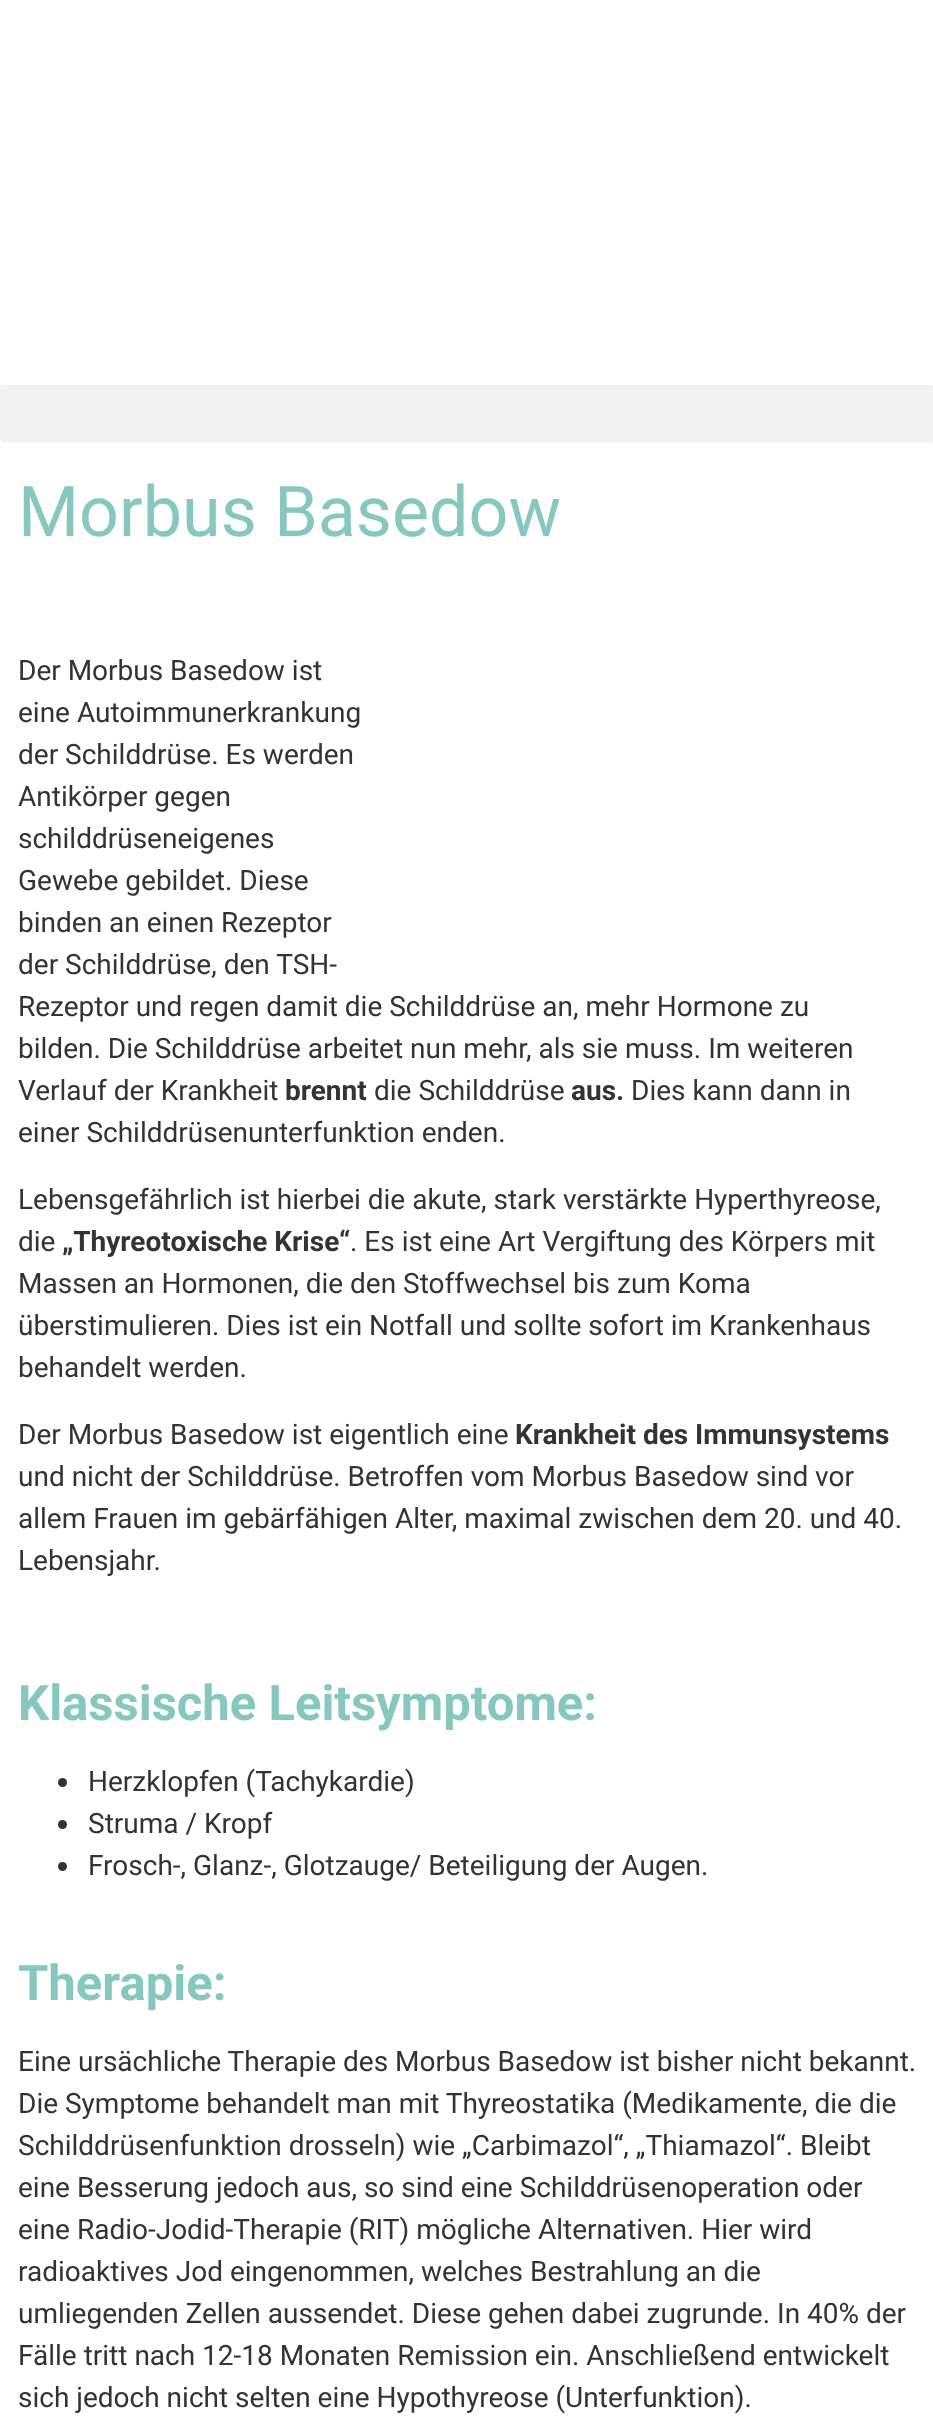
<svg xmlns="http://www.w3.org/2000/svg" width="933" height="2425">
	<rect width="100%" height="100%" fill="#FFFFFF" />
	<rect x="0" y="385" width="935" height="58" rx="5" fill="#F2F2F2" />
	<text x="18" y="536" font-family="Roboto" font-size="70" fill="#86C7BE">Morbus Basedow</text>
	<g font-family="Roboto" font-size="28" fill="#333333">
		<text x="18" y="680">Der Morbus Basedow ist</text>
		<text x="18" y="722">eine Autoimmunerkrankung</text>
		<text x="18" y="764">der Schilddrüse. Es werden</text>
		<text x="18" y="806">Antikörper gegen</text>
		<text x="18" y="848">schilddrüseneigenes</text>
		<text x="18" y="890">Gewebe gebildet. Diese</text>
		<text x="18" y="932">binden an einen Rezeptor</text>
		<text x="18" y="974">der Schilddrüse, den TSH-</text>
		<text x="18" y="1016">Rezeptor und regen damit die Schilddrüse an, mehr Hormone zu</text>
		<text x="18" y="1058">bilden. Die Schilddrüse arbeitet nun mehr, als sie muss. Im weiteren</text>
		<text x="18" y="1100">Verlauf der Krankheit</text>
	</g>
	<text x="285" y="1100" font-family="Roboto" font-size="28" font-weight="700" fill="#333333">brennt</text>
	<text x="374" y="1100" font-family="Roboto" font-size="28" fill="#333333">die Schilddrüse</text>
	<text x="571" y="1100" font-family="Roboto" font-size="28" font-weight="700" fill="#333333">aus.</text>
	<g font-family="Roboto" font-size="28" fill="#333333">
		<text x="631" y="1100">Dies kann dann in</text>
		<text x="18" y="1142">einer Schilddrüsenunterfunktion enden.</text>
		<text x="18" y="1209">Lebensgefährlich ist hierbei die akute, stark verstärkte Hyperthyreose,</text>
		<text x="18" y="1251">die</text>
	</g>
	<text x="62" y="1251" font-family="Roboto" font-size="28" font-weight="700" fill="#333333">„Thyreotoxische Krise“</text>
	<g font-family="Roboto" font-size="28" fill="#333333">
		<text x="350" y="1251">. Es ist eine Art Vergiftung des Körpers mit</text>
		<text x="18" y="1293">Massen an Hormonen, die den Stoffwechsel bis zum Koma</text>
		<text x="18" y="1335">überstimulieren. Dies ist ein Notfall und sollte sofort im Krankenhaus</text>
		<text x="18" y="1377">behandelt werden.</text>
		<text x="18" y="1444">Der Morbus Basedow ist eigentlich eine</text>
	</g>
	<text x="515" y="1444" font-family="Roboto" font-size="28" font-weight="700" fill="#333333">Krankheit des Immunsystems</text>
	<g font-family="Roboto" font-size="28" fill="#333333">
		<text x="18" y="1486">und nicht der Schilddrüse. Betroffen vom Morbus Basedow sind vor</text>
		<text x="18" y="1528">allem Frauen im gebärfähigen Alter, maximal zwischen dem 20. und 40.</text>
		<text x="18" y="1570">Lebensjahr.</text>
	</g>
	<text x="18" y="1720" font-family="Roboto" font-size="49" font-weight="700" fill="#86C7BE">Klassische Leitsymptome:</text>
	<circle cx="62.5" cy="1782.5" r="4.5" fill="#333333" />
	<text x="88" y="1791" font-family="Roboto" font-size="28" fill="#333333">Herzklopfen (Tachykardie)</text>
	<circle cx="62.5" cy="1824.5" r="4.5" fill="#333333" />
	<text x="88" y="1833" font-family="Roboto" font-size="28" fill="#333333">Struma / Kropf</text>
	<circle cx="62.5" cy="1866.5" r="4.5" fill="#333333" />
	<text x="88" y="1875" font-family="Roboto" font-size="28" fill="#333333">Frosch-, Glanz-, Glotzauge/ Beteiligung der Augen.</text>
	<text x="18" y="2000" font-family="Roboto" font-size="49" font-weight="700" fill="#86C7BE">Therapie:</text>
	<g font-family="Roboto" font-size="28" fill="#333333">
		<text x="18" y="2071">Eine ursächliche Therapie des Morbus Basedow ist bisher nicht bekannt.</text>
		<text x="18" y="2113">Die Symptome behandelt man mit Thyreostatika (Medikamente, die die</text>
		<text x="18" y="2155">Schilddrüsenfunktion drosseln) wie „Carbimazol“, „Thiamazol“. Bleibt</text>
		<text x="18" y="2197">eine Besserung jedoch aus, so sind eine Schilddrüsenoperation oder</text>
		<text x="18" y="2239">eine Radio-Jodid-Therapie (RIT) mögliche Alternativen. Hier wird</text>
		<text x="18" y="2281">radioaktives Jod eingenommen, welches Bestrahlung an die</text>
		<text x="18" y="2323">umliegenden Zellen aussendet. Diese gehen dabei zugrunde. In 40% der</text>
		<text x="18" y="2365">Fälle tritt nach 12-18 Monaten Remission ein. Anschließend entwickelt</text>
		<text x="18" y="2407">sich jedoch nicht selten eine Hypothyreose (Unterfunktion).</text>
	</g>
</svg>
